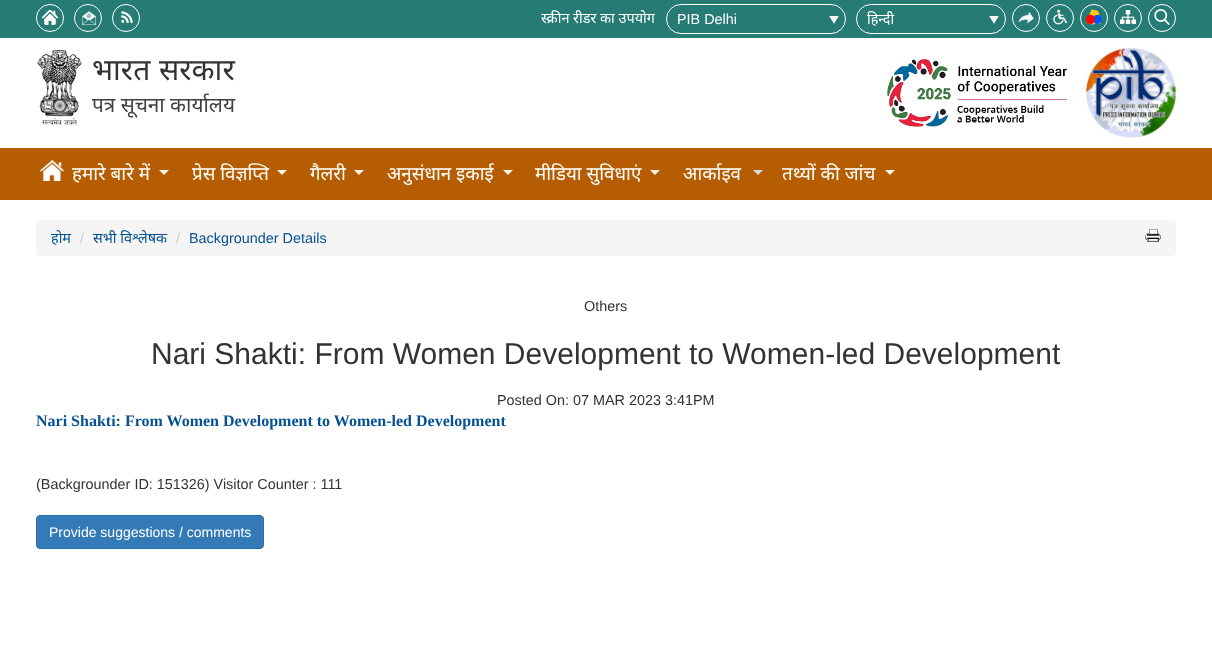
<svg xmlns="http://www.w3.org/2000/svg" width="1212" height="661">
	<rect width="100%" height="100%" fill="#FFFFFF" />
	<rect x="0" y="0" width="1212" height="38" fill="#267B74" />
	<image x="42" y="10" width="16" height="15" href="assets/img1.png" />
	<circle cx="50" cy="18" r="13.5" fill="none" stroke="#FFFFFF" />
	<image x="82" y="11" width="14" height="14" href="assets/img2.png" />
	<circle cx="88" cy="18" r="13.5" fill="none" stroke="#FFFFFF" />
	<image x="121" y="11" width="12" height="12" href="assets/img3.png" />
	<circle cx="126" cy="18" r="13.5" fill="none" stroke="#FFFFFF" />
	<text x="541" y="23" font-family="Noto Sans" font-size="14.4" fill="#FFFFFF">स्क्रीन रीडर का उपयोग</text>
	<image x="829" y="16" width="10" height="8" href="assets/img4.png" />
	<path d="M681 6H834C842 8 846 15 845 22C845 19 845 16 844 14C838 0 815 5 806 5H706C696 5 665-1 667 20C667 13 672 6 681 6Z" fill="#23726B" />
	<rect x="666.5" y="4.5" width="179" height="29" rx="14.5" fill="none" stroke="#FFFFFF" />
	<text x="677" y="24" font-family="Liberation Sans" font-size="14.4" fill="#FFFFFF">PIB Delhi</text>
	<image x="989" y="16" width="10" height="8" href="assets/img4.png" />
	<path d="M871 6H991C999 6 1005 12 1005 19C1006 1 982 5 971 5H891C880 5 856 1 857 19C857 12 863 6 871 6Z" fill="#23726B" />
	<rect x="856.5" y="4.5" width="149" height="29" rx="14.5" fill="none" stroke="#FFFFFF" />
	<text x="867" y="24" font-family="Noto Sans" font-size="14.4" fill="#FFFFFF">हिन्दी</text>
	<circle cx="1026" cy="18" r="13.5" fill="none" stroke="#FFFFFF" />
	<image x="1018" y="11" width="16" height="13" href="assets/img5.png" />
	<circle cx="1060" cy="18" r="13.5" fill="none" stroke="#FFFFFF" />
	<image x="1053" y="9" width="14" height="16" href="assets/img6.png" />
	<circle cx="1094" cy="18" r="13.5" fill="none" stroke="#FFFFFF" />
	<image x="1086" y="9" width="16" height="16" href="assets/img7.png" />
	<circle cx="1128" cy="18" r="13.5" fill="none" stroke="#FFFFFF" />
	<image x="1120" y="10" width="16" height="14" href="assets/img8.png" />
	<circle cx="1162" cy="18" r="13.5" fill="none" stroke="#FFFFFF" />
	<image x="1154" y="9" width="16" height="16" href="assets/img9.png" />
	<image x="37" y="50" width="45" height="75" href="assets/img10.png" />
	<text x="92" y="80" word-spacing="1" font-family="Noto Sans" font-size="30" fill="#333333">भारत सरकार</text>
	<text x="92" y="112" font-family="Noto Sans" font-size="20.75" fill="#404040">पत्र सूचना कार्यालय</text>
	<image x="887" y="59" width="180" height="68" href="assets/img11.png" />
	<image x="1086" y="48" width="90" height="90" href="assets/img12.png" />
	<rect x="0" y="148" width="1212" height="52" fill="#B55D00" />
	<image x="40" y="160" width="24" height="21" href="assets/img13.png" />
	<text x="72" y="180" font-family="Noto Sans" font-size="18.75" fill="#FFFFFF">हमारे बारे में</text>
	<path d="M159 170H169L164 175Z" fill="#F8EFE6" />
	<text x="192" y="180" font-family="Noto Sans" font-size="18.75" fill="#FFFFFF">प्रेस विज्ञप्ति</text>
	<path d="M277 170H287L282 175Z" fill="#F8EFE6" />
	<text x="310" y="180" font-family="Noto Sans" font-size="18.75" fill="#FFFFFF">गैलरी</text>
	<path d="M354 170H364L359 175Z" fill="#F8EFE6" />
	<text x="387" y="180" font-family="Noto Sans" font-size="18.75" fill="#FFFFFF">अनुसंधान इकाई</text>
	<path d="M503 170H513L508 175Z" fill="#F8EFE6" />
	<text x="535" y="180" font-family="Noto Sans" font-size="18.75" fill="#FFFFFF">मीडिया सुविधाएं</text>
	<path d="M650 170H660L655 175Z" fill="#F8EFE6" />
	<text x="683" y="180" font-family="Noto Sans" font-size="18.75" fill="#FFFFFF">आर्काइव</text>
	<path d="M753 170H763L758 175Z" fill="#DDDDDD" />
	<text x="782" y="180" font-family="Noto Sans" font-size="18.75" fill="#FFFFFF">तथ्यों की जांच</text>
	<path d="M885 170H895L890 175Z" fill="#F8EFE6" />
	<rect x="36" y="220" width="1140" height="36" rx="4" fill="#F5F5F5" />
	<text x="51" y="243" font-family="Noto Sans" font-size="14.4" fill="#055193">होम</text>
	<text x="80" y="243" font-family="Liberation Sans" font-size="14.4" fill="#CCCCCC">/</text>
	<text x="93" y="243" font-family="Noto Sans" font-size="14.4" fill="#055193">सभी विश्लेषक</text>
	<text x="176" y="243" font-family="Liberation Sans" font-size="14.4" fill="#CCCCCC">/</text>
	<text x="189" y="243" font-family="Liberation Sans" font-size="14.4" fill="#055193">Backgrounder Details</text>
	<image x="1145" y="229" width="16" height="13" href="assets/img14.png" />
	<text x="584" y="311" font-family="Liberation Sans" font-size="14.4" fill="#333333">Others</text>
	<text x="151" y="364" font-family="Liberation Sans" font-size="30" fill="#333333">Nari Shakti: From Women Development to Women-led Development</text>
	<text x="497" y="405" font-family="Liberation Sans" font-size="14.4" fill="#333333">Posted On: 07 MAR 2023 3:41PM</text>
	<text x="36" y="426" font-family="Liberation Serif" font-size="16" font-weight="700" fill="#055193">Nari Shakti: From Women Development to Women-led Development</text>
	<text x="36" y="489" font-family="Liberation Sans" font-size="14.4" fill="#333333">(Backgrounder ID: 151326) Visitor Counter : 111</text>
	<rect x="36.5" y="515.5" width="227" height="33" rx="3.5" fill="#337AB7" stroke="#2E6DA4" />
	<text x="49" y="537" font-family="Liberation Sans" font-size="14" fill="#FFFFFF">Provide suggestions / comments</text>
</svg>
